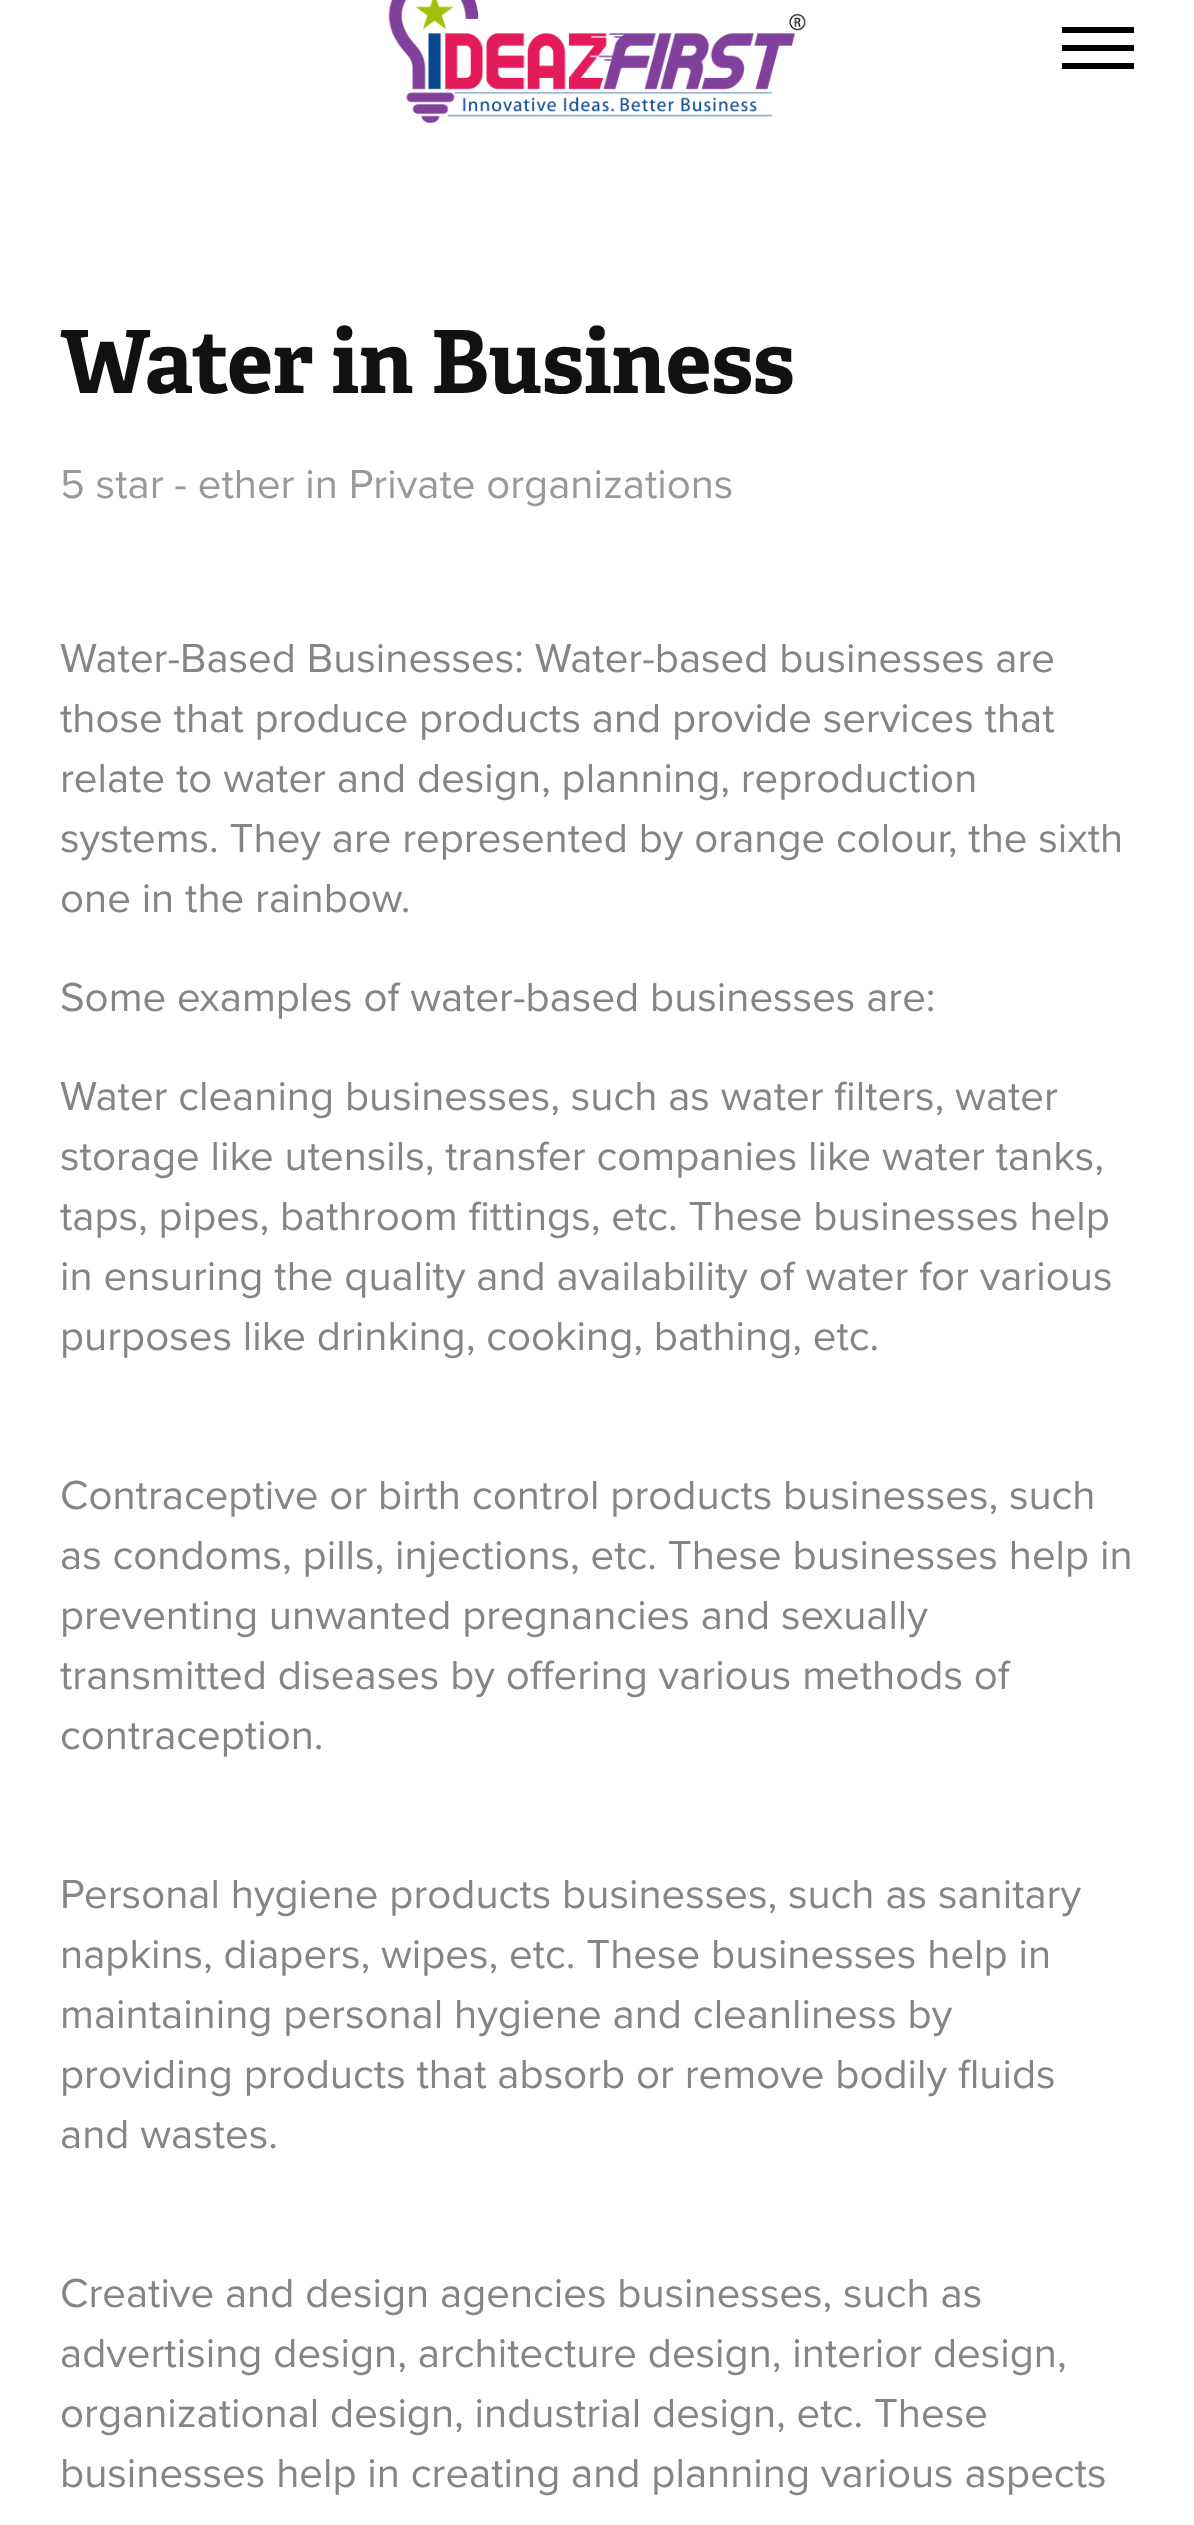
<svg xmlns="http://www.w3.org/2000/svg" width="1194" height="2525">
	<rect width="100%" height="100%" fill="#FFFFFF" />
	<image x="388" y="0" width="418" height="124" href="assets/img1.png" />
	<rect x="1062" y="27" width="72" height="6" fill="#000000" />
	<rect x="1062" y="45" width="72" height="6" fill="#000000" />
	<rect x="1062" y="63" width="72" height="6" fill="#000000" />
	<text x="60" y="393" font-family="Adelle" font-size="87" font-weight="700" fill="#111111">Water in Business</text>
	<text x="60" y="498" font-family="Proxima Nova" font-size="42" fill="#999999">5 star - ether in Private organizations</text>
	<g font-family="Proxima Nova" font-size="42" fill="#858585">
		<text x="60" y="672">Water-Based Businesses: Water-based businesses are</text>
		<text x="60" y="732">those that produce products and provide services that</text>
		<text x="60" y="792">relate to water and design, planning, reproduction</text>
		<text x="60" y="852">systems. They are represented by orange colour, the sixth</text>
		<text x="60" y="912">one in the rainbow.</text>
		<text x="60" y="1011">Some examples of water-based businesses are:</text>
		<text x="60" y="1110">Water cleaning businesses, such as water filters, water</text>
		<text x="60" y="1170">storage like utensils, transfer companies like water tanks,</text>
		<text x="60" y="1230">taps, pipes, bathroom fittings, etc. These businesses help</text>
		<text x="60" y="1290">in ensuring the quality and availability of water for various</text>
		<text x="60" y="1350">purposes like drinking, cooking, bathing, etc.</text>
		<text x="60" y="1509">Contraceptive or birth control products businesses, such</text>
		<text x="60" y="1569">as condoms, pills, injections, etc. These businesses help in</text>
		<text x="60" y="1629">preventing unwanted pregnancies and sexually</text>
		<text x="60" y="1689">transmitted diseases by offering various methods of</text>
		<text x="60" y="1749">contraception.</text>
		<text x="60" y="1908">Personal hygiene products businesses, such as sanitary</text>
		<text x="60" y="1968">napkins, diapers, wipes, etc. These businesses help in</text>
		<text x="60" y="2028">maintaining personal hygiene and cleanliness by</text>
		<text x="60" y="2088">providing products that absorb or remove bodily fluids</text>
		<text x="60" y="2148">and wastes.</text>
		<text x="60" y="2307">Creative and design agencies businesses, such as</text>
		<text x="60" y="2367">advertising design, architecture design, interior design,</text>
		<text x="60" y="2427">organizational design, industrial design, etc. These</text>
		<text x="60" y="2487">businesses help in creating and planning various aspects</text>
	</g>
</svg>
